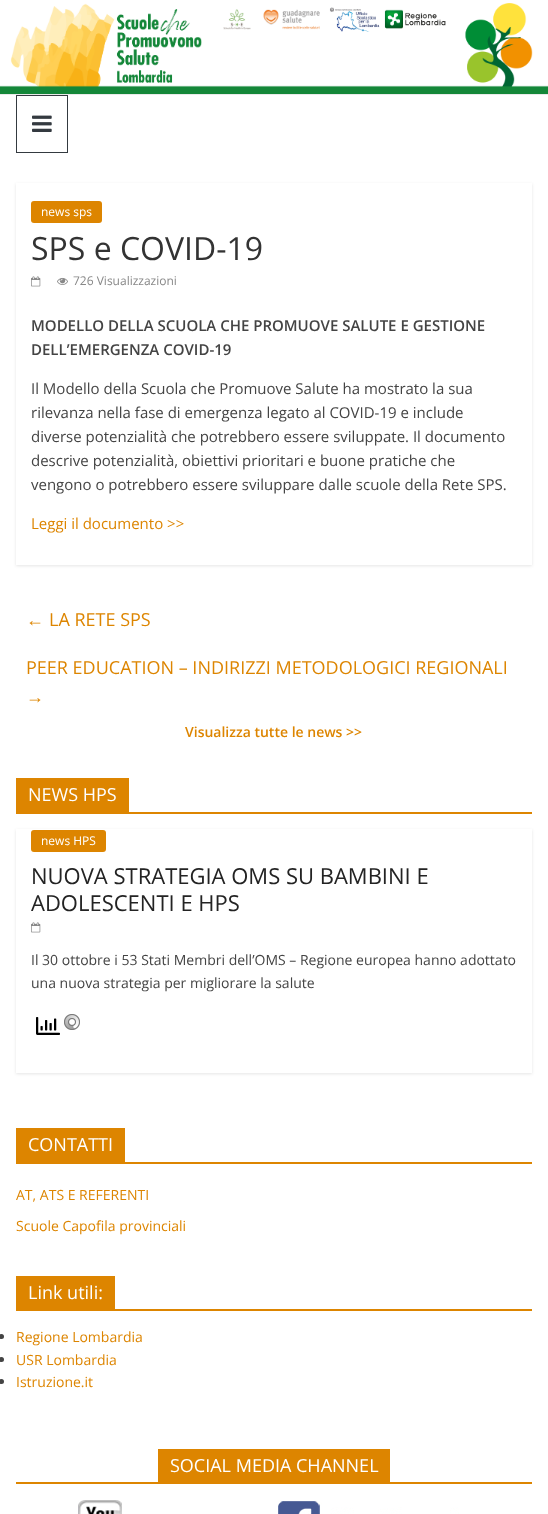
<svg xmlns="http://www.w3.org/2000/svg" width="548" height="1514">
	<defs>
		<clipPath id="clip1"><path d="M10 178H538V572H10ZM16 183H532V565H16Z" clip-rule="evenodd" /></clipPath>
		<clipPath id="clip2"><path d="M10 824H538V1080H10ZM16 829H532V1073H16Z" clip-rule="evenodd" /></clipPath>
	</defs>
	<rect width="100%" height="100%" fill="#FFFFFF" />
	<image x="0" y="3" width="548" height="91" href="assets/img1.png" />
	<rect x="0" y="94" width="548" height="1" fill="#EAEAEA" />
	<rect x="16.5" y="95.5" width="51" height="57" fill="none" stroke="#343A40" />
	<image x="32" y="115" width="20" height="17" href="assets/img2.png" />
	<g clip-path="url(#clip1)">
		<rect x="16" y="184" width="516" height="382" fill="#000000" fill-opacity="0.1" filter="blur(1.5px)" />
	</g>
	<rect x="31" y="201" width="71" height="22" rx="3" fill="#DD8500" />
	<text x="41" y="216" font-family="Open Sans" font-size="12" fill="#FFFFFF">news sps</text>
	<text x="31" y="260" font-family="Open Sans" font-size="32" fill="#333333">SPS e COVID-19</text>
	<image x="31" y="276" width="10" height="11" href="assets/img3.png" />
	<image x="57" y="277" width="11" height="8" href="assets/img4.png" />
	<text x="73" y="285" font-family="Open Sans" font-size="12" fill="#888888">726 Visualizzazioni</text>
	<g font-family="Open Sans" font-size="15" font-weight="600" fill="#444444">
		<text x="31" y="331">MODELLO DELLA SCUOLA CHE PROMUOVE SALUTE E GESTIONE</text>
		<text x="31" y="355">DELL’EMERGENZA COVID-19</text>
	</g>
	<g font-family="Open Sans" font-size="15" fill="#444444">
		<text x="31" y="394">Il Modello della Scuola che Promuove Salute ha mostrato la sua</text>
		<text x="31" y="418">rilevanza nella fase di emergenza legato al COVID-19 e include</text>
		<text x="31" y="442">diverse potenzialità che potrebbero essere sviluppate. Il documento</text>
		<text x="31" y="466">descrive potenzialità, obiettivi prioritari e buone pratiche che</text>
		<text x="31" y="490">vengono o potrebbero essere sviluppare dalle scuole della Rete SPS.</text>
	</g>
	<text x="31" y="529" font-family="Open Sans" font-size="15" fill="#DD8500">Leggi il documento &gt;&gt;</text>
	<text x="26" y="626" font-family="Liberation Serif" font-size="18" fill="#DD8500">←</text>
	<g font-family="Open Sans" font-size="18" fill="#DD8500">
		<text x="49" y="626">LA RETE SPS</text>
		<text x="26" y="674">PEER EDUCATION – INDIRIZZI METODOLOGICI REGIONALI</text>
	</g>
	<text x="26" y="703" font-family="Liberation Serif" font-size="18" fill="#DD8500">→</text>
	<text x="185" y="737" font-family="Open Sans" font-size="14" font-weight="600" fill="#DD8500">Visualizza tutte le news &gt;&gt;</text>
	<rect x="16" y="812" width="516" height="2" fill="#DD8500" />
	<rect x="16" y="778" width="113" height="34" fill="#DD8500" />
	<text x="28" y="801" font-family="Open Sans" font-size="18" fill="#FFFFFF">NEWS HPS</text>
	<g clip-path="url(#clip2)">
		<rect x="16" y="830" width="516" height="244" fill="#000000" fill-opacity="0.1" filter="blur(1.5px)" />
	</g>
	<rect x="31" y="830" width="75" height="22" rx="3" fill="#DD8500" />
	<text x="41" y="845" font-family="Open Sans" font-size="12" fill="#FFFFFF">news HPS</text>
	<g font-family="Open Sans" font-size="22" fill="#232323">
		<text x="31" y="884">NUOVA STRATEGIA OMS SU BAMBINI E</text>
		<text x="31" y="911">ADOLESCENTI E HPS</text>
	</g>
	<image x="31" y="922" width="10" height="11" href="assets/img3.png" />
	<g font-family="Open Sans" font-size="14" fill="#444444">
		<text x="31" y="965">Il 30 ottobre i 53 Stati Membri dell’OMS – Regione europea hanno adottato</text>
		<text x="31" y="988">una nuova strategia per migliorare la salute</text>
	</g>
	<image x="36" y="1017" width="24" height="18" href="assets/img5.png" />
	<image x="64" y="1014" width="16" height="16" href="assets/img6.png" />
	<rect x="16" y="1162" width="516" height="2" fill="#DD8500" />
	<rect x="16" y="1128" width="109" height="34" fill="#DD8500" />
	<text x="28" y="1151" font-family="Open Sans" font-size="18" fill="#FFFFFF">CONTATTI</text>
	<g font-family="Open Sans" font-size="14" fill="#DD8500">
		<text x="16" y="1200">AT, ATS E REFERENTI</text>
		<text x="16" y="1231">Scuole Capofila provinciali</text>
	</g>
	<rect x="16" y="1309" width="516" height="2" fill="#DD8500" />
	<rect x="16" y="1276" width="99" height="33" fill="#DD8500" />
	<text x="28" y="1299" font-family="Open Sans" font-size="18" fill="#FFFFFF">Link utili:</text>
	<circle cx="1.5" cy="1336.5" r="2.5" fill="#444444" />
	<text x="16" y="1342" font-family="Open Sans" font-size="14" fill="#DD8500">Regione Lombardia</text>
	<circle cx="1.5" cy="1359.5" r="2.5" fill="#444444" />
	<text x="16" y="1365" font-family="Open Sans" font-size="14" fill="#DD8500">USR Lombardia</text>
	<circle cx="1.5" cy="1381.5" r="2.5" fill="#444444" />
	<text x="16" y="1387" font-family="Open Sans" font-size="14" fill="#DD8500">Istruzione.it</text>
	<rect x="16" y="1482" width="516" height="2" fill="#DD8500" />
	<rect x="158" y="1449" width="232" height="33" fill="#DD8500" />
	<text x="170" y="1472" font-family="Open Sans" font-size="18" fill="#FFFFFF">SOCIAL MEDIA CHANNEL</text>
	<image x="78" y="1500" width="44" height="14" href="assets/img7.png" />
	<image x="278" y="1501" width="181" height="13" href="assets/img8.png" />
</svg>
